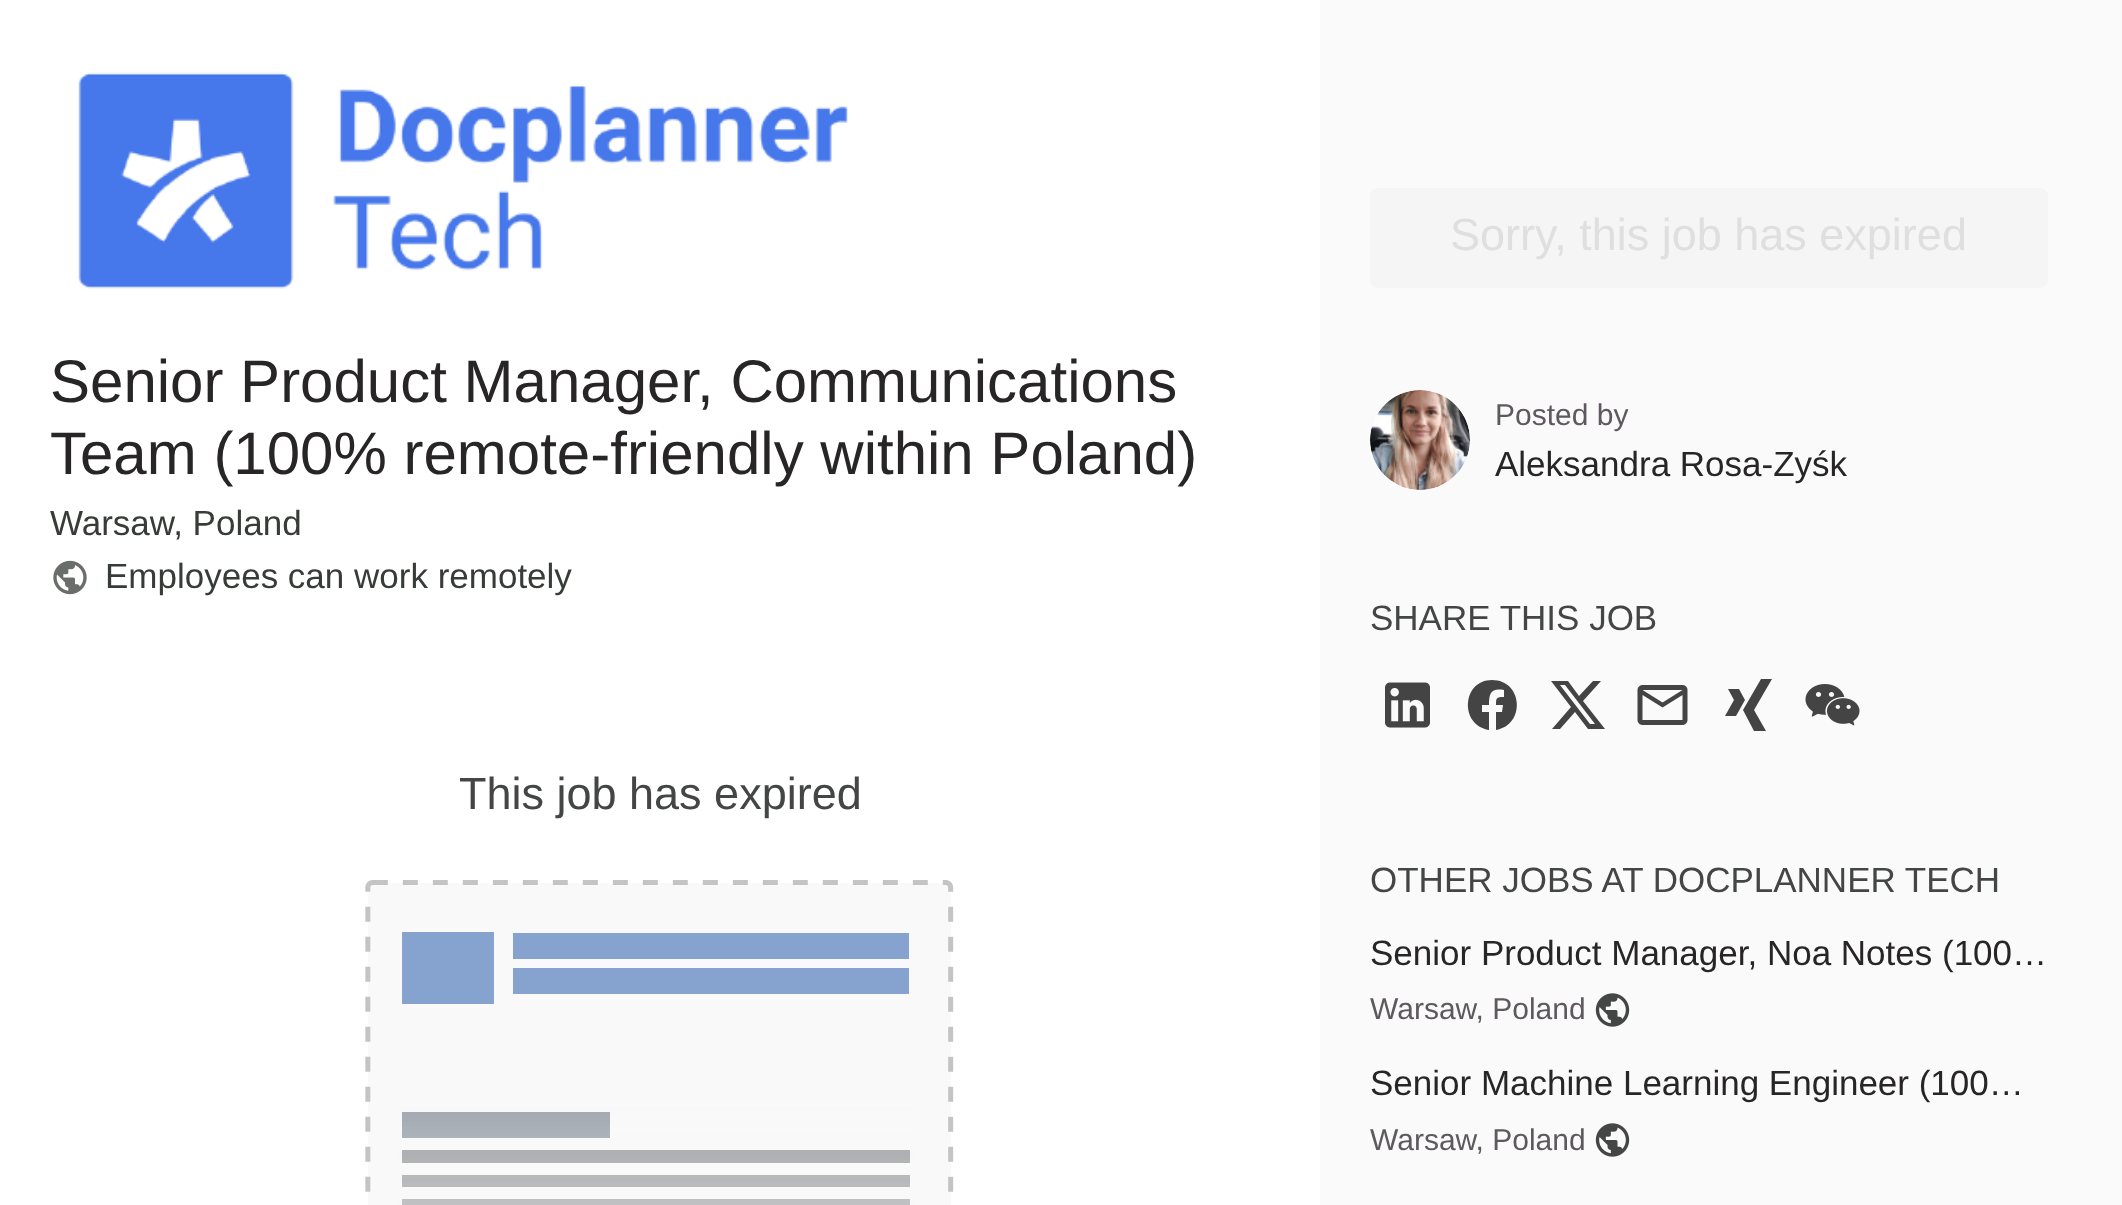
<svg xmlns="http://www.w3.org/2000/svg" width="2122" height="1205">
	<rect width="100%" height="100%" fill="#FFFFFF" />
	<image x="78" y="72" width="770" height="217" href="assets/img1.png" />
	<g font-family="Liberation Sans" font-size="60" fill="#272525">
		<text x="50" y="402">Senior Product Manager, Communications</text>
		<text x="50" y="474">Team (100% remote-friendly within Poland)</text>
	</g>
	<text x="50" y="535" font-family="Liberation Sans" font-size="35" fill="#383C38">Warsaw, Poland</text>
	<image x="53" y="560" width="34" height="35" href="assets/img2.png" />
	<text x="105" y="588" font-family="Liberation Sans" font-size="35" fill="#383C38">Employees can work remotely</text>
	<text x="459" y="809" font-family="Liberation Sans" font-size="45" fill="#444545">This job has expired</text>
	<image x="365" y="880" width="589" height="325" href="assets/img3.png" />
	<rect x="1320" y="0" width="802" height="1205" fill="#FAFAFA" />
	<rect x="1370" y="188" width="678" height="100" rx="8" fill="#F5F5F5" />
	<text x="1450" y="250" font-family="Liberation Sans" font-size="45" fill="#DFDFDF">Sorry, this job has expired</text>
	<image x="1370" y="390" width="100" height="100" href="assets/img4.png" />
	<text x="1495" y="425" font-family="Liberation Sans" font-size="30" fill="#5E595E">Posted by</text>
	<text x="1495" y="476" font-family="Liberation Sans" font-size="35" fill="#272525">Aleksandra Rosa-Zyśk</text>
	<text x="1370" y="630" font-family="Liberation Sans" font-size="35" fill="#444545">SHARE THIS JOB</text>
	<image x="1385" y="682" width="45" height="46" href="assets/img5.png" />
	<path d="M1492 680C1462 680 1459 725 1489 730V712H1482V705H1489C1489 693 1491 688 1504 690V697C1496 697 1496 698 1496 705H1503L1502 712H1496V730C1526 725 1523 680 1492 680Z" fill="#444444" />
	<path d="M1593 681H1601L1583 701L1605 729H1588L1575 712L1560 729H1552L1571 707L1551 681H1568L1579 696ZM1590 724H1595L1565 685H1560Z" fill="#444444" />
	<image x="1637" y="685" width="51" height="40" href="assets/img6.png" />
	<path d="M1743 710L1761 679H1772L1754 710L1766 731H1754ZM1734 700L1728 689H1739L1745 700L1736 716H1725Z" fill="#444444" />
	<image x="1805" y="684" width="55" height="42" href="assets/img7.png" />
	<text x="1370" y="892" font-family="Liberation Sans" font-size="35" fill="#444545">OTHER JOBS AT DOCPLANNER TECH</text>
	<text x="1370" y="965" font-family="Liberation Sans" font-size="35" fill="#272525">Senior Product Manager, Noa Notes (100…</text>
	<text x="1370" y="1019" font-family="Liberation Sans" font-size="30" fill="#5E595E">Warsaw, Poland</text>
	<image x="1595" y="993" width="35" height="34" href="assets/img8.png" />
	<text x="1370" y="1095" font-family="Liberation Sans" font-size="35" fill="#272525">Senior Machine Learning Engineer (100…</text>
	<text x="1370" y="1150" font-family="Liberation Sans" font-size="30" fill="#5E595E">Warsaw, Poland</text>
	<image x="1595" y="1123" width="35" height="34" href="assets/img8.png" />
</svg>
